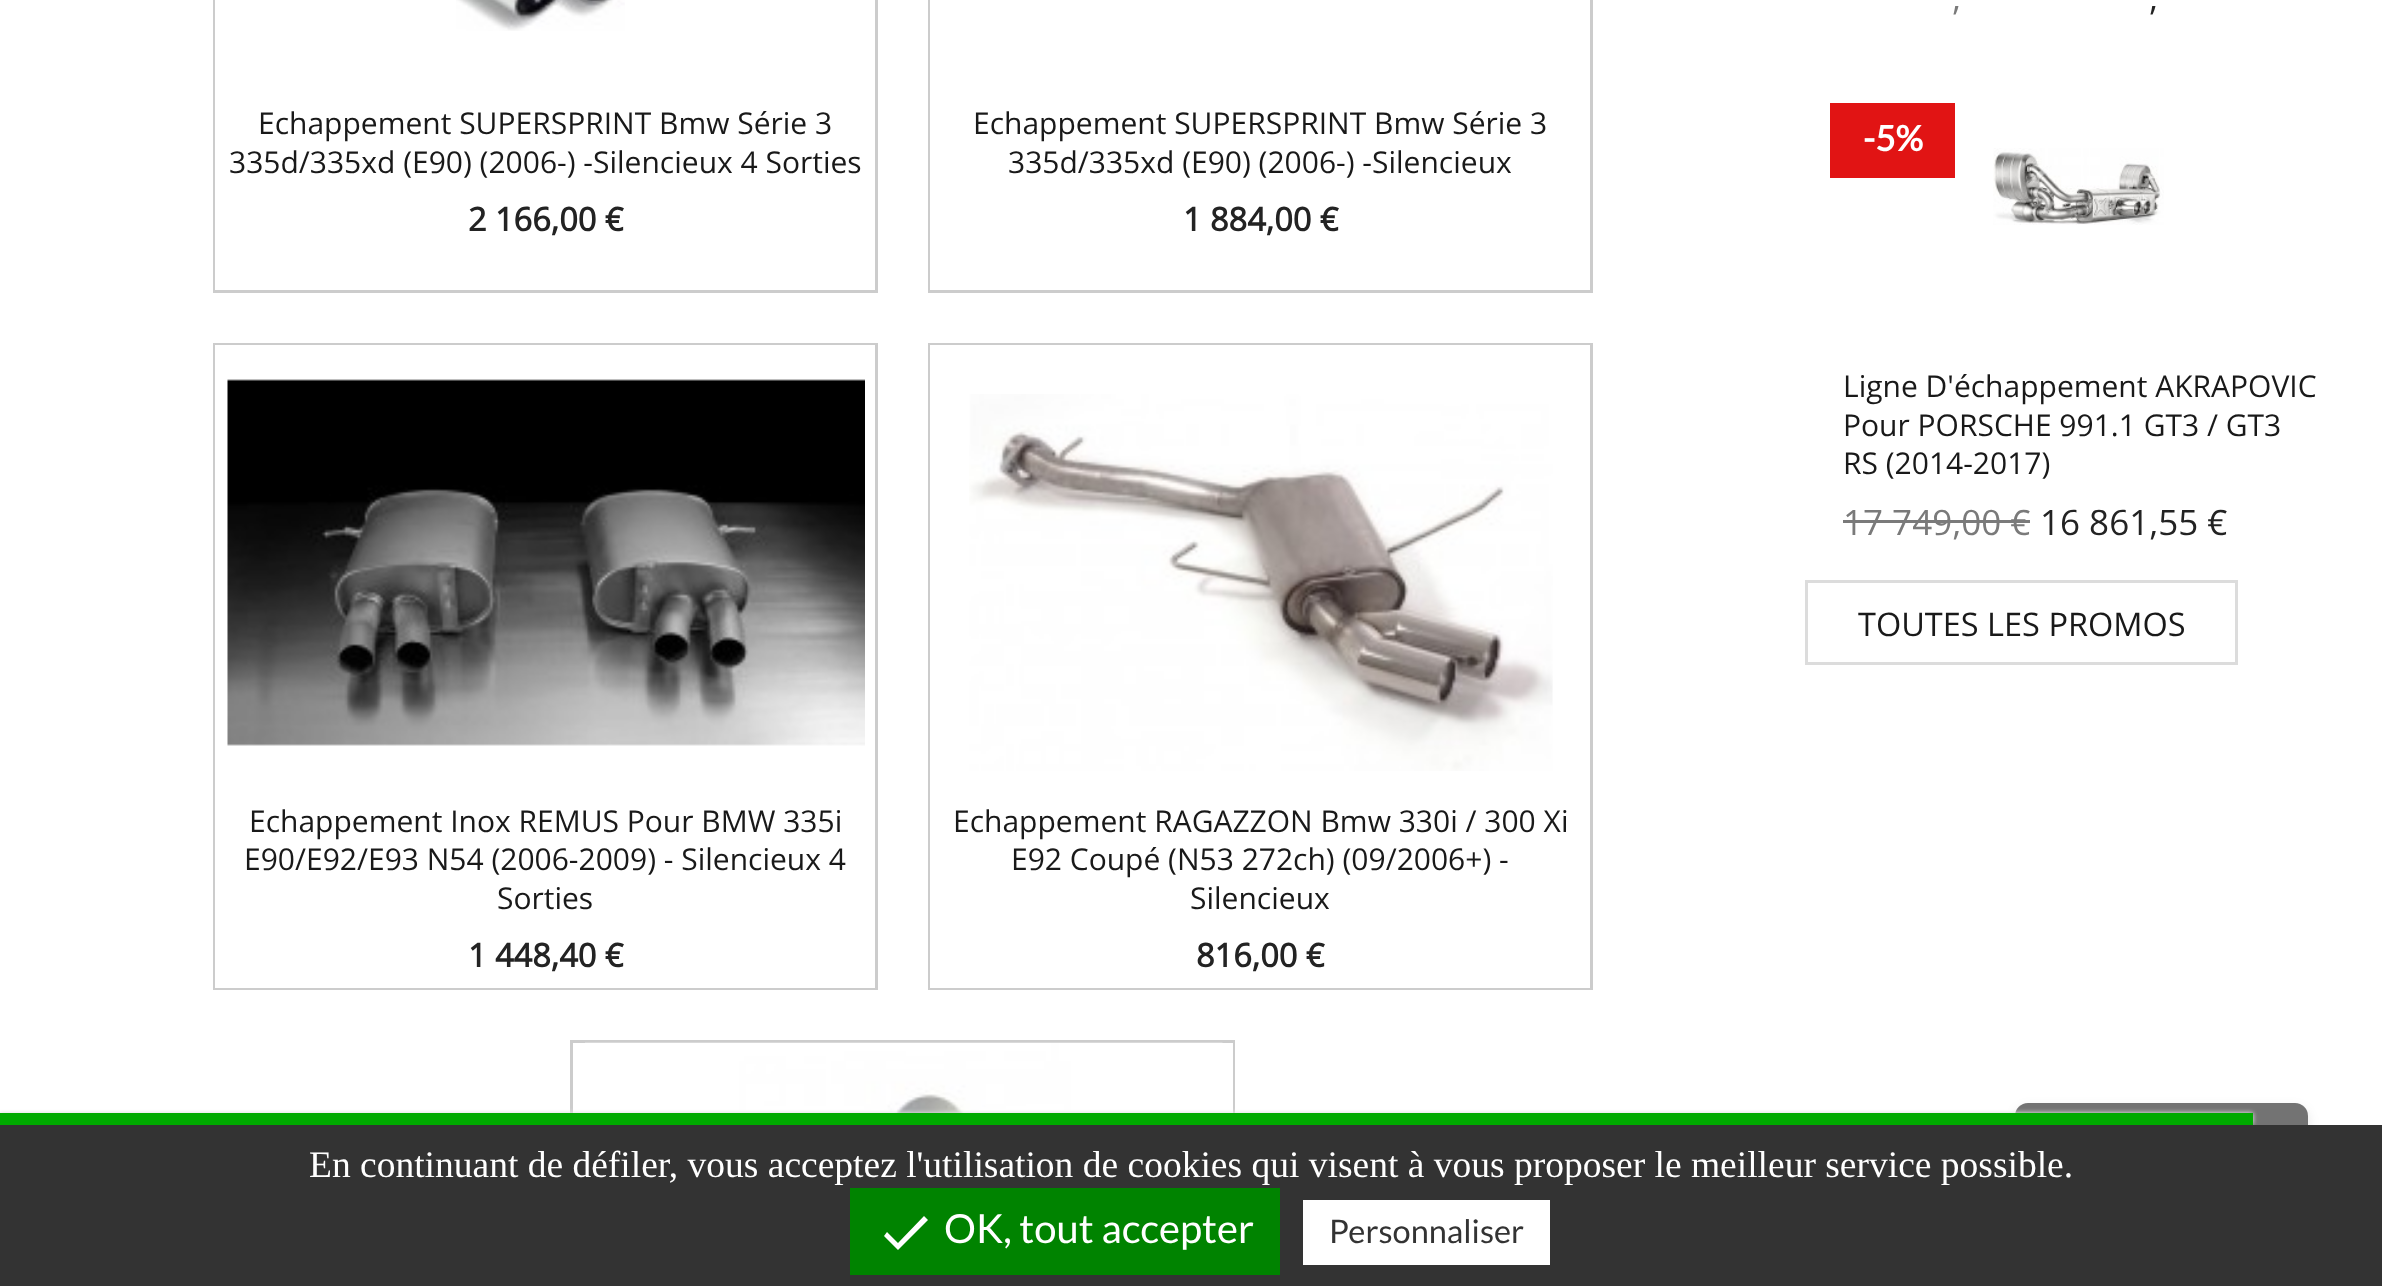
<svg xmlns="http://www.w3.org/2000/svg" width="2382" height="1286">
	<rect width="100%" height="100%" fill="#FFFFFF" />
	<rect x="214.5" y="-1.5" width="662" height="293" fill="none" stroke="#CCCCCC" stroke-width="3" />
	<rect x="215" y="0" width="1" height="290" fill="#FFFFFF" />
	<image x="456" y="0" width="169" height="31" href="assets/img1.png" />
	<g font-family="Open Sans" font-size="30" fill="#191919">
		<text x="258" y="134">Echappement SUPERSPRINT Bmw Série 3</text>
		<text x="229" y="173">335d/335xd (E90) (2006-) -Silencieux 4 Sorties</text>
	</g>
	<text x="468" y="231" font-family="Open Sans" font-size="32.5" font-weight="700" fill="#232323">2 166,00 €</text>
	<rect x="929.5" y="-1.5" width="662" height="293" fill="none" stroke="#CCCCCC" stroke-width="3" />
	<rect x="930" y="0" width="1" height="290" fill="#FFFFFF" />
	<g font-family="Open Sans" font-size="30" fill="#191919">
		<text x="973" y="134">Echappement SUPERSPRINT Bmw Série 3</text>
		<text x="1008" y="173">335d/335xd (E90) (2006-) -Silencieux</text>
	</g>
	<text x="1183" y="231" font-family="Open Sans" font-size="32.5" font-weight="700" fill="#232323">1 884,00 €</text>
	<rect x="214.5" y="344.5" width="662" height="644" fill="none" stroke="#CCCCCC" stroke-width="3" />
	<rect x="215" y="345" width="660" height="643" fill="#FFFFFF" />
	<image x="227" y="379" width="638" height="367" href="assets/img2.png" />
	<g font-family="Open Sans" font-size="30" fill="#191919">
		<text x="249" y="832">Echappement Inox REMUS Pour BMW 335i</text>
		<text x="244" y="870">E90/E92/E93 N54 (2006-2009) - Silencieux 4</text>
		<text x="497" y="909">Sorties</text>
	</g>
	<text x="468" y="967" font-family="Open Sans" font-size="32.5" font-weight="700" fill="#232323">1 448,40 €</text>
	<rect x="929.5" y="344.5" width="662" height="644" fill="none" stroke="#CCCCCC" stroke-width="3" />
	<rect x="930" y="345" width="660" height="643" fill="#FFFFFF" />
	<image x="969" y="394" width="584" height="377" href="assets/img3.png" />
	<g font-family="Open Sans" font-size="30" fill="#191919">
		<text x="953" y="832">Echappement RAGAZZON Bmw 330i / 300 Xi</text>
		<text x="1011" y="870">E92 Coupé (N53 272ch) (09/2006+) -</text>
		<text x="1190" y="909">Silencieux</text>
	</g>
	<text x="1196" y="967" font-family="Open Sans" font-size="32.5" font-weight="700" fill="#232323">816,00 €</text>
	<rect x="571.5" y="1041.5" width="662" height="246" fill="none" stroke="#CCCCCC" stroke-width="3" />
	<rect x="1232" y="1043" width="1" height="70" fill="#FFFFFF" />
	<image x="585" y="1042" width="638" height="71" href="assets/img4.png" />
	<text x="1952" y="10" font-family="Open Sans" font-size="35" fill="#7A7A7A">,</text>
	<text x="2149" y="10" font-family="Open Sans" font-size="35" fill="#232323">,</text>
	<rect x="1830" y="103" width="125" height="75" fill="#E11414" />
	<text x="1863" y="151" font-family="Lato" font-size="35" font-weight="700" fill="#FFFFFF">-5%</text>
	<image x="1993" y="148" width="171" height="77" href="assets/img5.png" />
	<g font-family="Open Sans" font-size="30" fill="#191919">
		<text x="1843" y="397">Ligne D'échappement AKRAPOVIC</text>
		<text x="1843" y="436">Pour PORSCHE 991.1 GT3 / GT3</text>
		<text x="1843" y="474">RS (2014-2017)</text>
	</g>
	<text x="1843" y="535" font-family="Open Sans" font-size="35" fill="#7A7A7A">17 749,00 €</text>
	<rect x="1843" y="520" width="187" height="3" fill="#7A7A7A" />
	<text x="2040" y="535" font-family="Open Sans" font-size="35" fill="#232323">16 861,55 €</text>
	<rect x="1806.5" y="581.5" width="430" height="82" fill="none" stroke="#DCDCDC" stroke-width="3" />
	<text x="1858" y="636" font-family="Open Sans" font-size="32.5" fill="#191919">TOUTES LES PROMOS</text>
	<rect x="2015" y="1108" width="293" height="110" rx="13" fill="#000000" fill-opacity="0.1" filter="blur(6px)" />
	<rect x="2015" y="1103" width="293" height="110" rx="13" fill="#737373" />
	<rect x="0" y="1115" width="2253" height="13" fill="#555555" filter="blur(2.5px)" />
	<rect x="0" y="1113" width="2253" height="12" fill="#FFFFFF" filter="blur(2.5px)" />
	<rect x="0" y="1113" width="2253" height="12" fill="#00AA00" />
	<rect x="0" y="1125" width="2382" height="161" fill="#333333" />
	<text x="309" y="1177" font-family="Liberation Serif" font-size="37.5" fill="#FFFFFF">En continuant de défiler, vous acceptez l'utilisation de cookies qui visent à vous proposer le meilleur service possible.</text>
	<rect x="850" y="1188" width="430" height="87" fill="#008300" />
	<path d="M898 1243L924 1216L928 1220L898 1250L884 1236L887 1232Z" fill="#FFFFFF" />
	<text x="944" y="1243" font-family="Lato" font-size="40" fill="#FFFFFF">OK, tout accepter</text>
	<rect x="1303" y="1200" width="247" height="65" fill="#FFFFFF" />
	<text x="1329" y="1243" font-family="Lato" font-size="32.5" fill="#333333">Personnaliser</text>
</svg>
